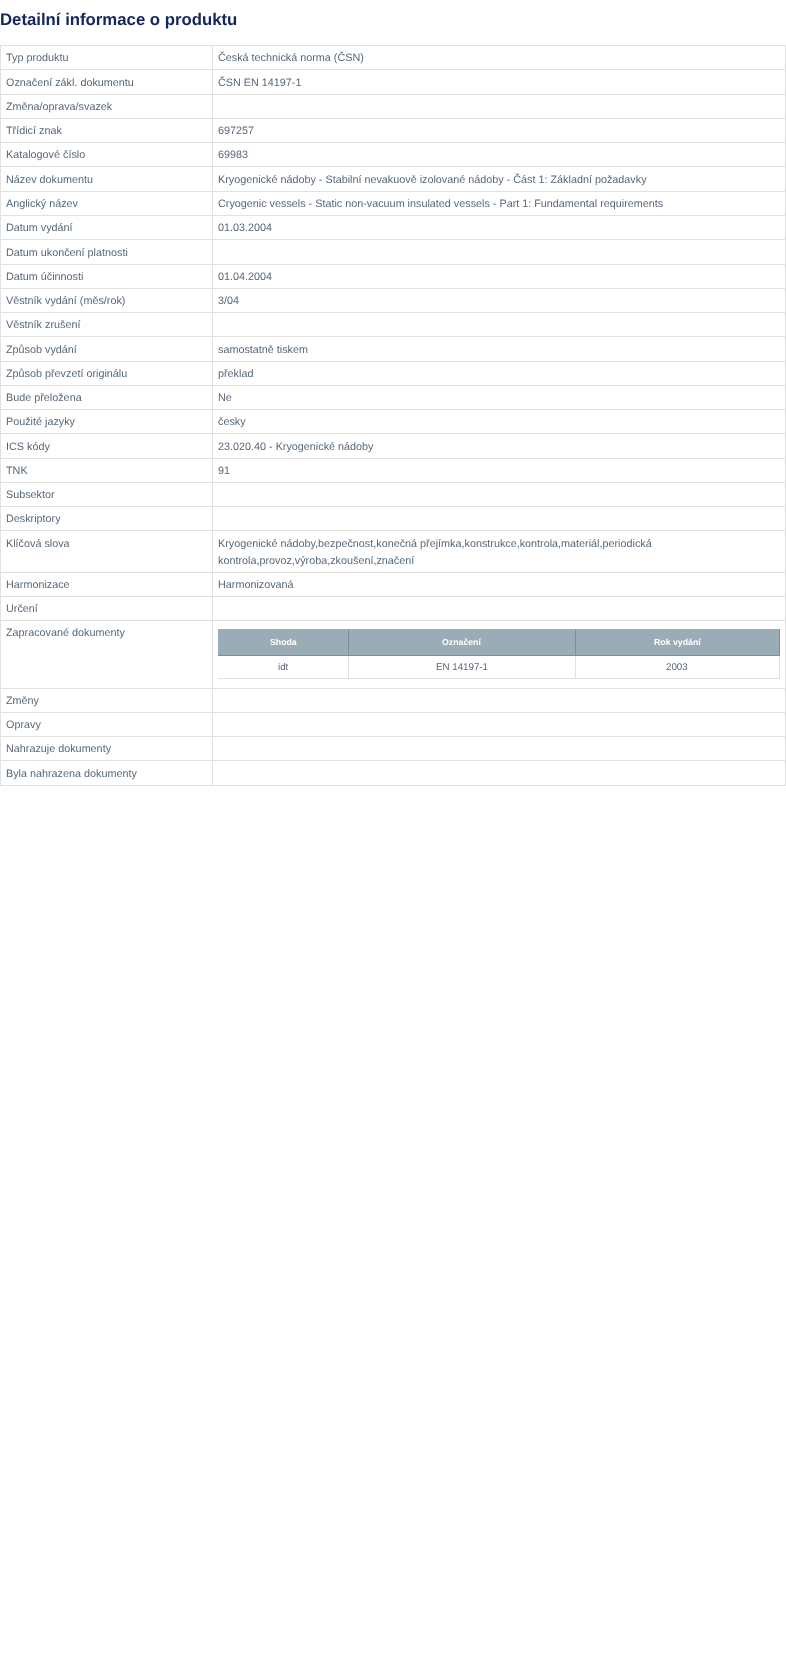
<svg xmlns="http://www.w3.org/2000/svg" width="786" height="1666">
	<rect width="100%" height="100%" fill="#FFFFFF" />
	<text x="0" y="25" font-family="Liberation Sans" font-size="16.75" font-weight="700" fill="#12255C">Detailní informace o produktu</text>
	<rect x="0" y="45" width="786" height="1" fill="#E1E1E1" />
	<rect x="0" y="785" width="786" height="1" fill="#E1E1E1" />
	<rect x="0" y="45" width="1" height="741" fill="#E1E1E1" />
	<text x="6" y="61" font-family="Liberation Sans" font-size="10.8" fill="#576879">Typ produktu</text>
	<rect x="212" y="69" width="574" height="1" fill="#E1E1E1" />
	<rect x="212" y="94" width="574" height="1" fill="#E1E1E1" />
	<rect x="212" y="118" width="574" height="1" fill="#E1E1E1" />
	<rect x="212" y="142" width="574" height="1" fill="#E1E1E1" />
	<rect x="212" y="166" width="574" height="1" fill="#E1E1E1" />
	<rect x="212" y="191" width="574" height="1" fill="#E1E1E1" />
	<rect x="212" y="215" width="574" height="1" fill="#E1E1E1" />
	<rect x="212" y="239" width="574" height="1" fill="#E1E1E1" />
	<rect x="212" y="264" width="574" height="1" fill="#E1E1E1" />
	<rect x="212" y="288" width="574" height="1" fill="#E1E1E1" />
	<rect x="212" y="312" width="574" height="1" fill="#E1E1E1" />
	<rect x="212" y="336" width="574" height="1" fill="#E1E1E1" />
	<rect x="212" y="361" width="574" height="1" fill="#E1E1E1" />
	<rect x="212" y="385" width="574" height="1" fill="#E1E1E1" />
	<rect x="212" y="409" width="574" height="1" fill="#E1E1E1" />
	<rect x="212" y="433" width="574" height="1" fill="#E1E1E1" />
	<rect x="212" y="458" width="574" height="1" fill="#E1E1E1" />
	<rect x="212" y="482" width="574" height="1" fill="#E1E1E1" />
	<rect x="212" y="506" width="574" height="1" fill="#E1E1E1" />
	<rect x="212" y="530" width="574" height="1" fill="#E1E1E1" />
	<rect x="212" y="572" width="574" height="1" fill="#E1E1E1" />
	<rect x="212" y="596" width="574" height="1" fill="#E1E1E1" />
	<rect x="212" y="620" width="574" height="1" fill="#E1E1E1" />
	<rect x="212" y="688" width="574" height="1" fill="#E1E1E1" />
	<rect x="212" y="712" width="574" height="1" fill="#E1E1E1" />
	<rect x="212" y="736" width="574" height="1" fill="#E1E1E1" />
	<rect x="212" y="760" width="574" height="1" fill="#E1E1E1" />
	<rect x="212" y="760" width="1" height="26" fill="#E1E1E1" />
	<rect x="0" y="760" width="213" height="1" fill="#E1E1E1" />
	<rect x="212" y="736" width="1" height="25" fill="#E1E1E1" />
	<rect x="0" y="736" width="213" height="1" fill="#E1E1E1" />
	<rect x="212" y="712" width="1" height="25" fill="#E1E1E1" />
	<rect x="0" y="712" width="213" height="1" fill="#E1E1E1" />
	<rect x="212" y="688" width="1" height="25" fill="#E1E1E1" />
	<rect x="0" y="688" width="213" height="1" fill="#E1E1E1" />
	<rect x="212" y="620" width="1" height="69" fill="#E1E1E1" />
	<rect x="0" y="620" width="213" height="1" fill="#E1E1E1" />
	<rect x="212" y="596" width="1" height="25" fill="#E1E1E1" />
	<rect x="0" y="596" width="213" height="1" fill="#E1E1E1" />
	<rect x="212" y="572" width="1" height="25" fill="#E1E1E1" />
	<rect x="0" y="572" width="213" height="1" fill="#E1E1E1" />
	<rect x="212" y="530" width="1" height="43" fill="#E1E1E1" />
	<rect x="0" y="530" width="213" height="1" fill="#E1E1E1" />
	<rect x="212" y="506" width="1" height="25" fill="#E1E1E1" />
	<rect x="0" y="506" width="213" height="1" fill="#E1E1E1" />
	<rect x="212" y="482" width="1" height="25" fill="#E1E1E1" />
	<rect x="0" y="482" width="213" height="1" fill="#E1E1E1" />
	<rect x="212" y="458" width="1" height="25" fill="#E1E1E1" />
	<rect x="0" y="458" width="213" height="1" fill="#E1E1E1" />
	<rect x="212" y="433" width="1" height="26" fill="#E1E1E1" />
	<rect x="0" y="433" width="213" height="1" fill="#E1E1E1" />
	<rect x="212" y="409" width="1" height="25" fill="#E1E1E1" />
	<rect x="0" y="409" width="213" height="1" fill="#E1E1E1" />
	<rect x="212" y="385" width="1" height="25" fill="#E1E1E1" />
	<rect x="0" y="385" width="213" height="1" fill="#E1E1E1" />
	<rect x="212" y="361" width="1" height="25" fill="#E1E1E1" />
	<rect x="0" y="361" width="213" height="1" fill="#E1E1E1" />
	<rect x="212" y="336" width="1" height="26" fill="#E1E1E1" />
	<rect x="0" y="336" width="213" height="1" fill="#E1E1E1" />
	<rect x="212" y="312" width="1" height="25" fill="#E1E1E1" />
	<rect x="0" y="312" width="213" height="1" fill="#E1E1E1" />
	<rect x="212" y="288" width="1" height="25" fill="#E1E1E1" />
	<rect x="0" y="288" width="213" height="1" fill="#E1E1E1" />
	<rect x="212" y="264" width="1" height="25" fill="#E1E1E1" />
	<rect x="0" y="264" width="213" height="1" fill="#E1E1E1" />
	<rect x="212" y="239" width="1" height="26" fill="#E1E1E1" />
	<rect x="0" y="239" width="213" height="1" fill="#E1E1E1" />
	<rect x="212" y="215" width="1" height="25" fill="#E1E1E1" />
	<rect x="0" y="215" width="213" height="1" fill="#E1E1E1" />
	<rect x="212" y="191" width="1" height="25" fill="#E1E1E1" />
	<rect x="0" y="191" width="213" height="1" fill="#E1E1E1" />
	<rect x="212" y="166" width="1" height="26" fill="#E1E1E1" />
	<rect x="0" y="166" width="213" height="1" fill="#E1E1E1" />
	<rect x="212" y="142" width="1" height="25" fill="#E1E1E1" />
	<rect x="0" y="142" width="213" height="1" fill="#E1E1E1" />
	<rect x="212" y="118" width="1" height="25" fill="#E1E1E1" />
	<rect x="0" y="118" width="213" height="1" fill="#E1E1E1" />
	<rect x="212" y="94" width="1" height="25" fill="#E1E1E1" />
	<rect x="0" y="94" width="213" height="1" fill="#E1E1E1" />
	<rect x="212" y="69" width="1" height="26" fill="#E1E1E1" />
	<rect x="0" y="69" width="213" height="1" fill="#E1E1E1" />
	<rect x="212" y="45" width="1" height="25" fill="#E1E1E1" />
	<g font-family="Liberation Sans" font-size="10.8" fill="#576879">
		<text x="218" y="61">Česká technická norma (ČSN)</text>
		<text x="6" y="86">Označení zákl. dokumentu</text>
	</g>
	<rect x="785" y="760" width="1" height="26" fill="#E1E1E1" />
	<rect x="785" y="736" width="1" height="25" fill="#E1E1E1" />
	<rect x="785" y="712" width="1" height="25" fill="#E1E1E1" />
	<rect x="785" y="688" width="1" height="25" fill="#E1E1E1" />
	<rect x="785" y="620" width="1" height="69" fill="#E1E1E1" />
	<rect x="785" y="596" width="1" height="25" fill="#E1E1E1" />
	<rect x="785" y="572" width="1" height="25" fill="#E1E1E1" />
	<rect x="785" y="530" width="1" height="43" fill="#E1E1E1" />
	<rect x="785" y="506" width="1" height="25" fill="#E1E1E1" />
	<rect x="785" y="482" width="1" height="25" fill="#E1E1E1" />
	<rect x="785" y="458" width="1" height="25" fill="#E1E1E1" />
	<rect x="785" y="433" width="1" height="26" fill="#E1E1E1" />
	<rect x="785" y="409" width="1" height="25" fill="#E1E1E1" />
	<rect x="785" y="385" width="1" height="25" fill="#E1E1E1" />
	<rect x="785" y="361" width="1" height="25" fill="#E1E1E1" />
	<rect x="785" y="336" width="1" height="26" fill="#E1E1E1" />
	<rect x="785" y="312" width="1" height="25" fill="#E1E1E1" />
	<rect x="785" y="288" width="1" height="25" fill="#E1E1E1" />
	<rect x="785" y="264" width="1" height="25" fill="#E1E1E1" />
	<rect x="785" y="239" width="1" height="26" fill="#E1E1E1" />
	<rect x="785" y="215" width="1" height="25" fill="#E1E1E1" />
	<rect x="785" y="191" width="1" height="25" fill="#E1E1E1" />
	<rect x="785" y="166" width="1" height="26" fill="#E1E1E1" />
	<rect x="785" y="142" width="1" height="25" fill="#E1E1E1" />
	<rect x="785" y="118" width="1" height="25" fill="#E1E1E1" />
	<rect x="785" y="94" width="1" height="25" fill="#E1E1E1" />
	<rect x="785" y="45" width="1" height="50" fill="#E1E1E1" />
	<g font-family="Liberation Sans" font-size="10.8" fill="#576879">
		<text x="218" y="86">ČSN EN 14197-1</text>
		<text x="6" y="110">Změna/oprava/svazek</text>
		<text x="6" y="134">Třídicí znak</text>
		<text x="218" y="134">697257</text>
		<text x="6" y="158">Katalogové číslo</text>
		<text x="218" y="158">69983</text>
		<text x="6" y="183">Název dokumentu</text>
		<text x="218" y="183">Kryogenické nádoby - Stabilní nevakuově izolované nádoby - Část 1: Základní požadavky</text>
		<text x="6" y="207">Anglický název</text>
		<text x="218" y="207">Cryogenic vessels - Static non-vacuum insulated vessels - Part 1: Fundamental requirements</text>
		<text x="6" y="231">Datum vydání</text>
		<text x="218" y="231">01.03.2004</text>
		<text x="6" y="256">Datum ukončení platnosti</text>
		<text x="6" y="280">Datum účinnosti</text>
		<text x="218" y="280">01.04.2004</text>
		<text x="6" y="304">Věstník vydání (měs/rok)</text>
		<text x="218" y="304">3/04</text>
		<text x="6" y="328">Věstník zrušení</text>
		<text x="6" y="353">Způsob vydání</text>
		<text x="218" y="353">samostatně tiskem</text>
		<text x="6" y="377">Způsob převzetí originálu</text>
		<text x="218" y="377">překlad</text>
		<text x="6" y="401">Bude přeložena</text>
		<text x="218" y="401">Ne</text>
		<text x="6" y="425">Použité jazyky</text>
		<text x="218" y="425">česky</text>
		<text x="6" y="450">ICS kódy</text>
		<text x="218" y="450">23.020.40 - Kryogenické nádoby</text>
		<text x="6" y="474">TNK</text>
		<text x="218" y="474">91</text>
		<text x="6" y="498">Subsektor</text>
		<text x="6" y="522">Deskriptory</text>
		<text x="6" y="547">Klíčová slova</text>
		<text x="218" y="547">Kryogenické nádoby,bezpečnost,konečná přejímka,konstrukce,kontrola,materiál,periodická</text>
		<text x="218" y="564">kontrola,provoz,výroba,zkoušení,značení</text>
		<text x="6" y="588">Harmonizace</text>
		<text x="218" y="588">Harmonizovaná</text>
		<text x="6" y="612">Určení</text>
		<text x="6" y="636">Zapracované dokumenty</text>
	</g>
	<rect x="218" y="629" width="130" height="26" fill="#9AADB7" />
	<rect x="779" y="655" width="1" height="24" fill="#E1E1E1" />
	<rect x="779" y="629" width="1" height="27" fill="#7C8F99" />
	<rect x="575" y="678" width="205" height="1" fill="#E1E1E1" />
	<rect x="575" y="655" width="1" height="24" fill="#E1E1E1" />
	<rect x="575" y="655" width="205" height="1" fill="#7C8F99" />
	<rect x="575" y="629" width="1" height="27" fill="#7C8F99" />
	<rect x="348" y="678" width="228" height="1" fill="#E1E1E1" />
	<rect x="348" y="655" width="1" height="24" fill="#E1E1E1" />
	<rect x="348" y="655" width="228" height="1" fill="#7C8F99" />
	<rect x="348" y="629" width="1" height="27" fill="#7C8F99" />
	<rect x="218" y="655" width="131" height="1" fill="#7C8F99" />
	<text x="270" y="645" font-family="Liberation Sans" font-size="8.75" font-weight="700" fill="#FFFFFF">Shoda</text>
	<rect x="349" y="629" width="226" height="26" fill="#9AADB7" />
	<text x="442" y="645" font-family="Liberation Sans" font-size="8.75" font-weight="700" fill="#FFFFFF">Označení</text>
	<rect x="576" y="629" width="203" height="26" fill="#9AADB7" />
	<text x="654" y="645" font-family="Liberation Sans" font-size="8.75" font-weight="700" fill="#FFFFFF">Rok vydání</text>
	<rect x="218" y="678" width="131" height="1" fill="#E1E1E1" />
	<g font-family="Liberation Sans" font-size="9.75" fill="#576879">
		<text x="278" y="670">idt</text>
		<text x="436" y="670">EN 14197-1</text>
		<text x="666" y="670">2003</text>
	</g>
	<g font-family="Liberation Sans" font-size="10.8" fill="#576879">
		<text x="6" y="704">Změny</text>
		<text x="6" y="728">Opravy</text>
		<text x="6" y="752">Nahrazuje dokumenty</text>
		<text x="6" y="777">Byla nahrazena dokumenty</text>
	</g>
</svg>
